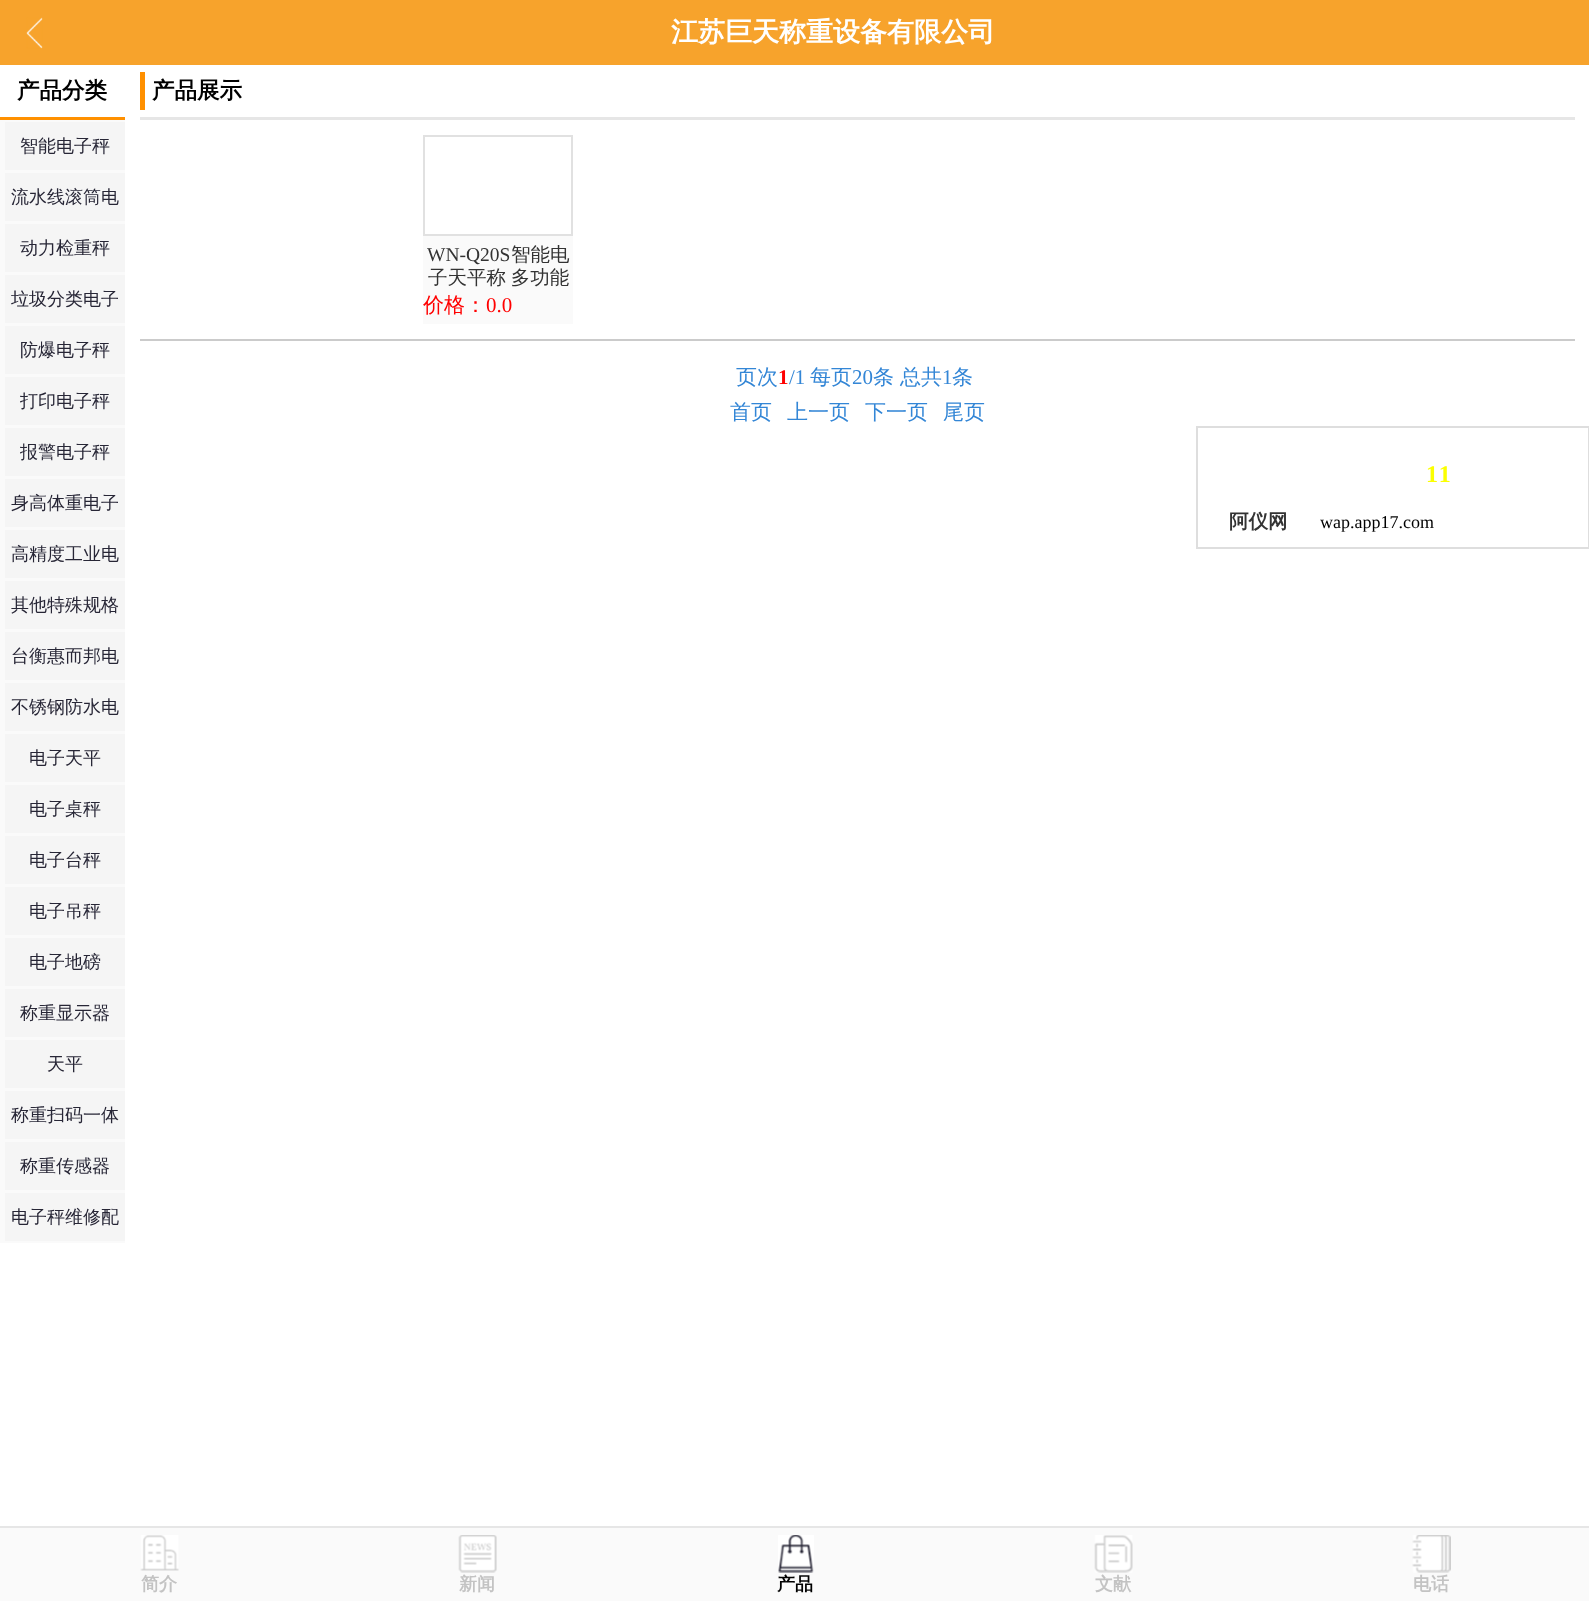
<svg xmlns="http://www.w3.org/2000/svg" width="1589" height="1601">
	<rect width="100%" height="100%" fill="#FFFFFF" />
	<rect x="0" y="0" width="1589" height="65" fill="#F7A32C" />
	<image x="26" y="17" width="17" height="32" href="assets/img1.png" />
	<text x="671" y="41" font-family="WenQuanYi Zen Hei" font-size="27" font-weight="700" fill="#FFFFFF">江苏巨天称重设备有限公司</text>
	<rect x="0" y="117" width="125" height="3" fill="#FF9000" />
	<text x="17" y="98" font-family="WenQuanYi Zen Hei" font-size="22.5" font-weight="700" fill="#000000">产品分类</text>
	<rect x="5" y="122" width="120" height="48" fill="#F5F5F5" />
	<rect x="0" y="120" width="125" height="2" fill="#FAFAFA" />
	<rect x="0" y="170" width="125" height="3" fill="#FAFAFA" />
	<rect x="0" y="120" width="5" height="51" fill="#FAFAFA" />
	<text x="20" y="152" font-family="WenQuanYi Zen Hei" font-size="18" font-weight="500" fill="#272636">智能电子秤</text>
	<rect x="5" y="173" width="120" height="48" fill="#F5F5F5" />
	<rect x="0" y="221" width="125" height="3" fill="#FAFAFA" />
	<rect x="0" y="171" width="5" height="51" fill="#FAFAFA" />
	<text x="11" y="203" font-family="WenQuanYi Zen Hei" font-size="18" font-weight="500" fill="#272636">流水线滚筒电</text>
	<rect x="5" y="224" width="120" height="48" fill="#F5F5F5" />
	<rect x="0" y="272" width="125" height="3" fill="#FAFAFA" />
	<rect x="0" y="222" width="5" height="51" fill="#FAFAFA" />
	<text x="20" y="254" font-family="WenQuanYi Zen Hei" font-size="18" font-weight="500" fill="#272636">动力检重秤</text>
	<rect x="5" y="275" width="120" height="48" fill="#F5F5F5" />
	<rect x="0" y="323" width="125" height="3" fill="#FAFAFA" />
	<rect x="0" y="273" width="5" height="51" fill="#FAFAFA" />
	<text x="11" y="305" font-family="WenQuanYi Zen Hei" font-size="18" font-weight="500" fill="#272636">垃圾分类电子</text>
	<rect x="5" y="326" width="120" height="48" fill="#F5F5F5" />
	<rect x="0" y="374" width="125" height="3" fill="#FAFAFA" />
	<rect x="0" y="324" width="5" height="51" fill="#FAFAFA" />
	<text x="20" y="356" font-family="WenQuanYi Zen Hei" font-size="18" font-weight="500" fill="#272636">防爆电子秤</text>
	<rect x="5" y="377" width="120" height="48" fill="#F5F5F5" />
	<rect x="0" y="425" width="125" height="3" fill="#FAFAFA" />
	<rect x="0" y="375" width="5" height="51" fill="#FAFAFA" />
	<text x="20" y="407" font-family="WenQuanYi Zen Hei" font-size="18" font-weight="500" fill="#272636">打印电子秤</text>
	<rect x="5" y="428" width="120" height="48" fill="#F5F5F5" />
	<rect x="0" y="476" width="125" height="3" fill="#FAFAFA" />
	<rect x="0" y="426" width="5" height="51" fill="#FAFAFA" />
	<text x="20" y="458" font-family="WenQuanYi Zen Hei" font-size="18" font-weight="500" fill="#272636">报警电子秤</text>
	<rect x="5" y="479" width="120" height="48" fill="#F5F5F5" />
	<rect x="0" y="527" width="125" height="3" fill="#FAFAFA" />
	<rect x="0" y="477" width="5" height="51" fill="#FAFAFA" />
	<text x="11" y="509" font-family="WenQuanYi Zen Hei" font-size="18" font-weight="500" fill="#272636">身高体重电子</text>
	<rect x="5" y="530" width="120" height="48" fill="#F5F5F5" />
	<rect x="0" y="578" width="125" height="3" fill="#FAFAFA" />
	<rect x="0" y="528" width="5" height="51" fill="#FAFAFA" />
	<text x="11" y="560" font-family="WenQuanYi Zen Hei" font-size="18" font-weight="500" fill="#272636">高精度工业电</text>
	<rect x="5" y="581" width="120" height="48" fill="#F5F5F5" />
	<rect x="0" y="629" width="125" height="3" fill="#FAFAFA" />
	<rect x="0" y="579" width="5" height="51" fill="#FAFAFA" />
	<text x="11" y="611" font-family="WenQuanYi Zen Hei" font-size="18" font-weight="500" fill="#272636">其他特殊规格</text>
	<rect x="5" y="632" width="120" height="48" fill="#F5F5F5" />
	<rect x="0" y="680" width="125" height="3" fill="#FAFAFA" />
	<rect x="0" y="630" width="5" height="51" fill="#FAFAFA" />
	<text x="11" y="662" font-family="WenQuanYi Zen Hei" font-size="18" font-weight="500" fill="#272636">台衡惠而邦电</text>
	<rect x="5" y="683" width="120" height="48" fill="#F5F5F5" />
	<rect x="0" y="731" width="125" height="3" fill="#FAFAFA" />
	<rect x="0" y="681" width="5" height="51" fill="#FAFAFA" />
	<text x="11" y="713" font-family="WenQuanYi Zen Hei" font-size="18" font-weight="500" fill="#272636">不锈钢防水电</text>
	<rect x="5" y="734" width="120" height="48" fill="#F5F5F5" />
	<rect x="0" y="782" width="125" height="3" fill="#FAFAFA" />
	<rect x="0" y="732" width="5" height="51" fill="#FAFAFA" />
	<text x="29" y="764" font-family="WenQuanYi Zen Hei" font-size="18" font-weight="500" fill="#272636">电子天平</text>
	<rect x="5" y="785" width="120" height="48" fill="#F5F5F5" />
	<rect x="0" y="833" width="125" height="3" fill="#FAFAFA" />
	<rect x="0" y="783" width="5" height="51" fill="#FAFAFA" />
	<text x="29" y="815" font-family="WenQuanYi Zen Hei" font-size="18" font-weight="500" fill="#272636">电子桌秤</text>
	<rect x="5" y="836" width="120" height="48" fill="#F5F5F5" />
	<rect x="0" y="884" width="125" height="3" fill="#FAFAFA" />
	<rect x="0" y="834" width="5" height="51" fill="#FAFAFA" />
	<text x="29" y="866" font-family="WenQuanYi Zen Hei" font-size="18" font-weight="500" fill="#272636">电子台秤</text>
	<rect x="5" y="887" width="120" height="48" fill="#F5F5F5" />
	<rect x="0" y="935" width="125" height="3" fill="#FAFAFA" />
	<rect x="0" y="885" width="5" height="51" fill="#FAFAFA" />
	<text x="29" y="917" font-family="WenQuanYi Zen Hei" font-size="18" font-weight="500" fill="#272636">电子吊秤</text>
	<rect x="5" y="938" width="120" height="48" fill="#F5F5F5" />
	<rect x="0" y="986" width="125" height="3" fill="#FAFAFA" />
	<rect x="0" y="936" width="5" height="51" fill="#FAFAFA" />
	<text x="29" y="968" font-family="WenQuanYi Zen Hei" font-size="18" font-weight="500" fill="#272636">电子地磅</text>
	<rect x="5" y="989" width="120" height="48" fill="#F5F5F5" />
	<rect x="0" y="1037" width="125" height="3" fill="#FAFAFA" />
	<rect x="0" y="987" width="5" height="51" fill="#FAFAFA" />
	<text x="20" y="1019" font-family="WenQuanYi Zen Hei" font-size="18" font-weight="500" fill="#272636">称重显示器</text>
	<rect x="5" y="1040" width="120" height="48" fill="#F5F5F5" />
	<rect x="0" y="1088" width="125" height="3" fill="#FAFAFA" />
	<rect x="0" y="1038" width="5" height="51" fill="#FAFAFA" />
	<text x="47" y="1070" font-family="WenQuanYi Zen Hei" font-size="18" font-weight="500" fill="#272636">天平</text>
	<rect x="5" y="1091" width="120" height="48" fill="#F5F5F5" />
	<rect x="0" y="1139" width="125" height="3" fill="#FAFAFA" />
	<rect x="0" y="1089" width="5" height="51" fill="#FAFAFA" />
	<text x="11" y="1121" font-family="WenQuanYi Zen Hei" font-size="18" font-weight="500" fill="#272636">称重扫码一体</text>
	<rect x="5" y="1142" width="120" height="48" fill="#F5F5F5" />
	<rect x="0" y="1190" width="125" height="3" fill="#FAFAFA" />
	<rect x="0" y="1140" width="5" height="51" fill="#FAFAFA" />
	<text x="20" y="1172" font-family="WenQuanYi Zen Hei" font-size="18" font-weight="500" fill="#272636">称重传感器</text>
	<rect x="5" y="1193" width="120" height="48" fill="#F5F5F5" />
	<rect x="0" y="1241" width="125" height="2" fill="#FAFAFA" />
	<rect x="0" y="1191" width="5" height="51" fill="#FAFAFA" />
	<text x="11" y="1223" font-family="WenQuanYi Zen Hei" font-size="18" font-weight="500" fill="#272636">电子秤维修配</text>
	<rect x="140" y="117" width="1435" height="3" fill="#E6E6E6" />
	<rect x="140" y="72" width="5" height="38" fill="#FF9000" />
	<text x="152" y="98" font-family="WenQuanYi Zen Hei" font-size="22.5" font-weight="700" fill="#000000">产品展示</text>
	<rect x="423" y="236" width="150" height="88" fill="#FAFAFA" />
	<rect x="424" y="136" width="148" height="99" fill="none" stroke="#E1E1E1" stroke-width="2" />
	<text x="427" y="261" font-family="Liberation Serif" font-size="19.5" fill="#333333">WN-Q20S</text>
	<g font-family="WenQuanYi Zen Hei" font-size="19.5" font-weight="500" fill="#333333">
		<text x="511" y="261">智能电</text>
		<text x="428" y="284" word-spacing="-1">子天平称 多功能</text>
	</g>
	<text x="423" y="312" font-family="WenQuanYi Zen Hei" font-size="21" font-weight="500" fill="#FF0000">价格：</text>
	<text x="486" y="312" font-family="Liberation Serif" font-size="21" fill="#FF0000">0.0</text>
	<rect x="140" y="339" width="1435" height="2" fill="#CBCBCB" />
	<text x="736" y="384" font-family="WenQuanYi Zen Hei" font-size="21" font-weight="500" fill="#3386D6">页次</text>
	<text x="778" y="384" font-family="Liberation Serif" font-size="21" font-weight="700" fill="#FF0000">1</text>
	<text x="789" y="384" font-family="Liberation Serif" font-size="21" fill="#3386D6">/1</text>
	<text x="810" y="384" font-family="WenQuanYi Zen Hei" font-size="21" font-weight="500" fill="#3386D6">每页</text>
	<text x="852" y="384" font-family="Liberation Serif" font-size="21" fill="#3386D6">20</text>
	<g font-family="WenQuanYi Zen Hei" font-size="21" font-weight="500" fill="#3386D6">
		<text x="873" y="384">条</text>
		<text x="900" y="384">总共</text>
	</g>
	<text x="942" y="384" font-family="Liberation Serif" font-size="21" fill="#3386D6">1</text>
	<g font-family="WenQuanYi Zen Hei" font-size="21" font-weight="500" fill="#3386D6">
		<text x="952" y="384">条</text>
		<text x="730" y="419">首页</text>
		<text x="787" y="419">上一页</text>
		<text x="865" y="419">下一页</text>
		<text x="943" y="419">尾页</text>
	</g>
	<rect x="1197" y="427" width="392" height="121" fill="none" stroke="#DEDEDE" stroke-width="2" />
	<text x="1426" y="482" font-family="Liberation Serif" font-size="24" font-weight="700" letter-spacing="2" fill="#FBFF00">11</text>
	<text x="1229" y="528" font-family="WenQuanYi Zen Hei" font-size="19.5" font-weight="700" fill="#333333">阿仪网</text>
	<text x="1320" y="528" font-family="Liberation Serif" font-size="18" fill="#000000">wap.app17.com</text>
	<rect x="0" y="1528" width="1589" height="73" fill="#FAFAFA" />
	<rect x="0" y="1526" width="1589" height="2" fill="#E6E6E6" />
	<image x="140" y="1535" width="39" height="36" href="assets/img2.png" />
	<text x="141" y="1590" font-family="WenQuanYi Zen Hei" font-size="18" font-weight="700" fill="#C3C3C3">简介</text>
	<image x="458" y="1535" width="39" height="38" href="assets/img3.png" />
	<text x="459" y="1590" font-family="WenQuanYi Zen Hei" font-size="18" font-weight="700" fill="#C3C3C3">新闻</text>
	<image x="778" y="1535" width="36" height="38" href="assets/img4.png" />
	<text x="777" y="1590" font-family="WenQuanYi Zen Hei" font-size="18" font-weight="700" fill="#000000">产品</text>
	<image x="1094" y="1535" width="39" height="38" href="assets/img5.png" />
	<text x="1095" y="1590" font-family="WenQuanYi Zen Hei" font-size="18" font-weight="700" fill="#C3C3C3">文献</text>
	<image x="1412" y="1535" width="39" height="38" href="assets/img6.png" />
	<text x="1413" y="1590" font-family="WenQuanYi Zen Hei" font-size="18" font-weight="700" fill="#C3C3C3">电话</text>
</svg>
